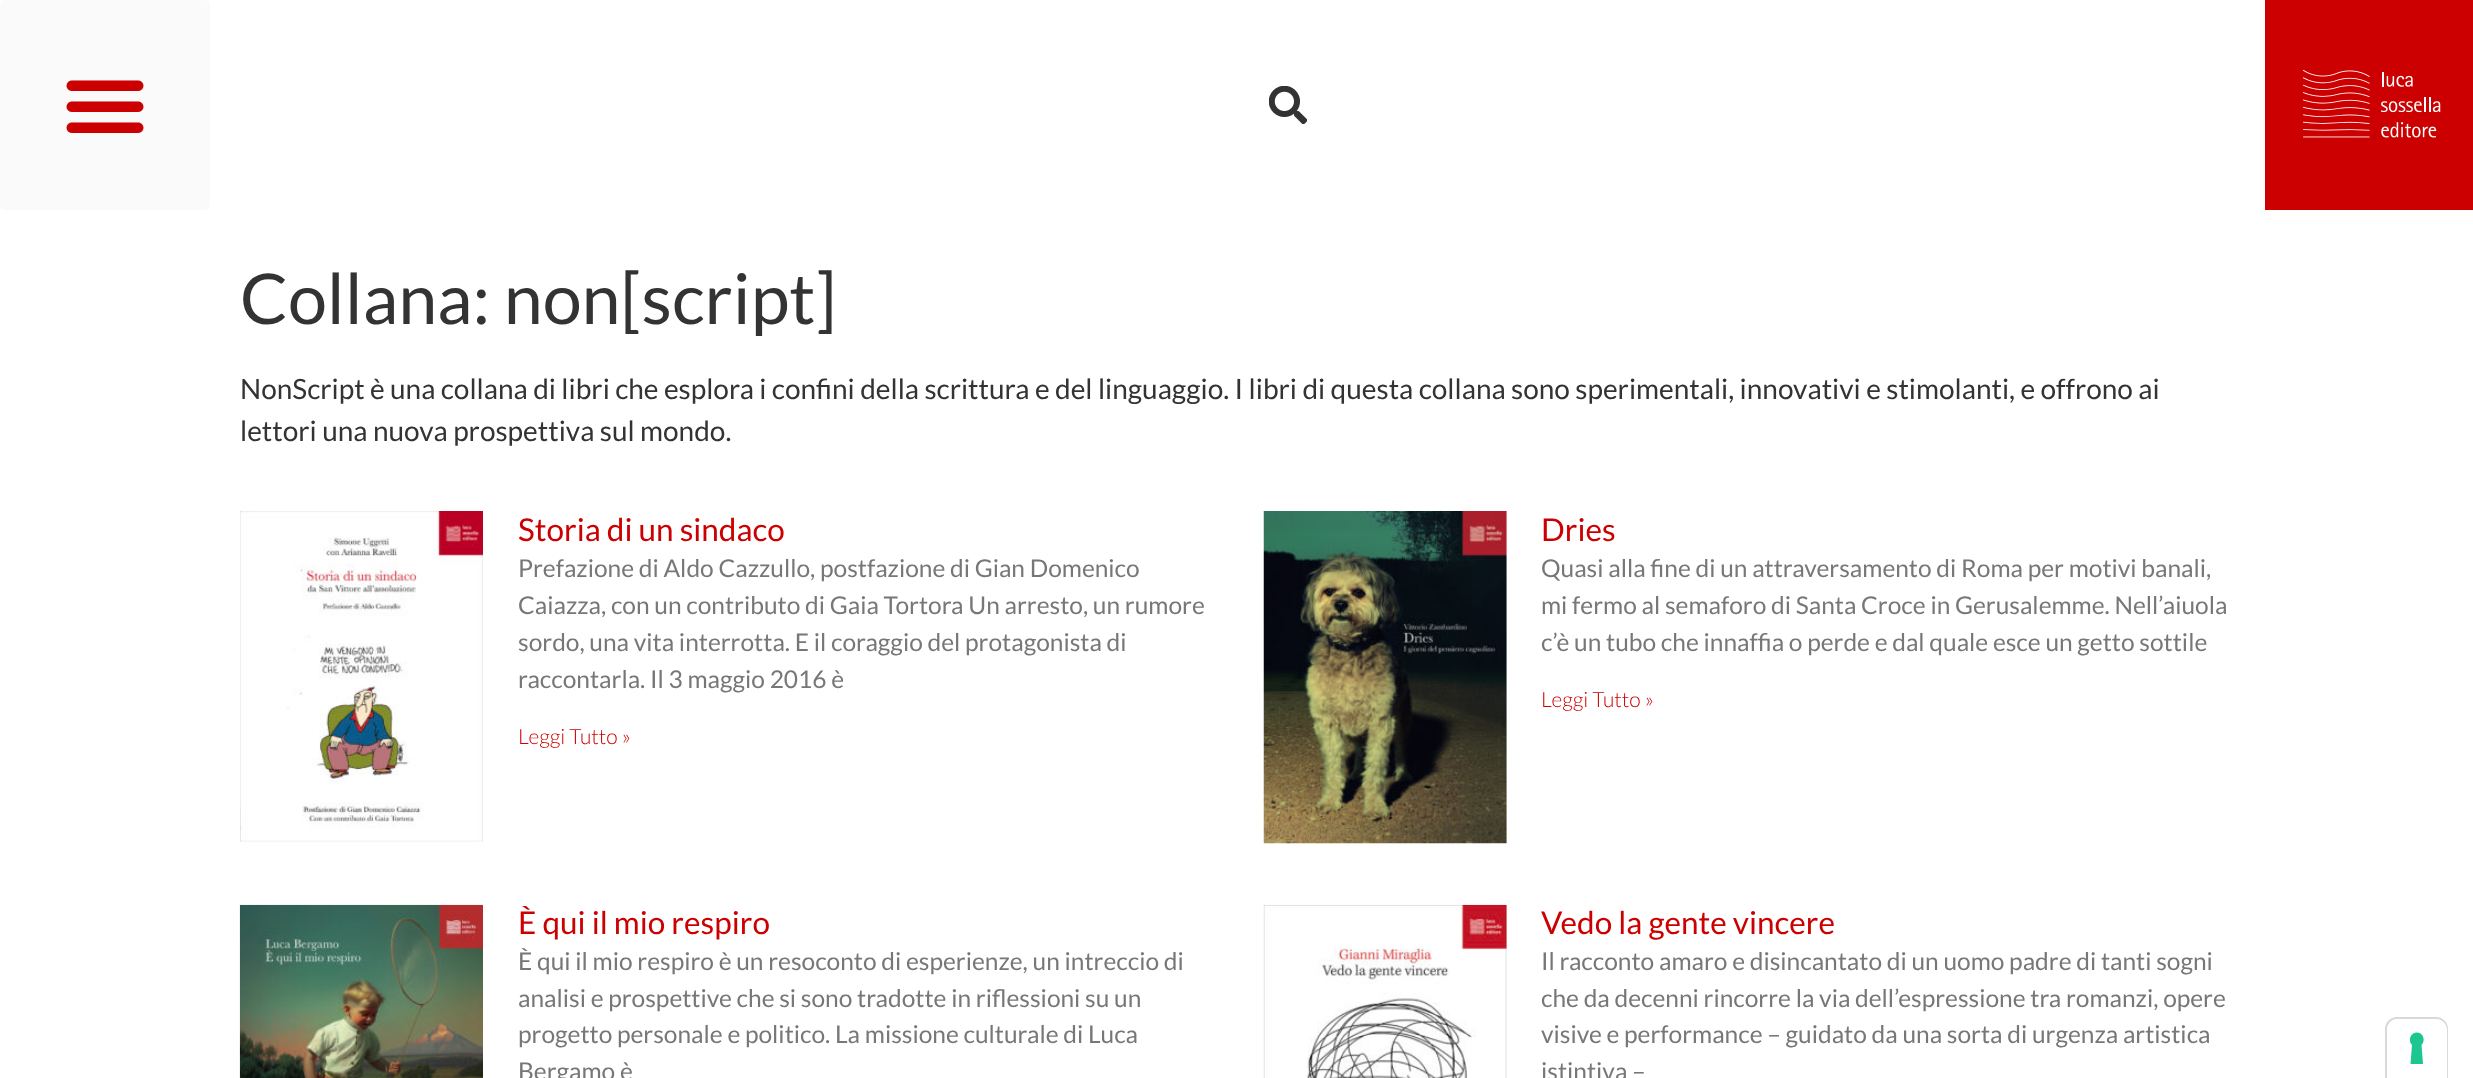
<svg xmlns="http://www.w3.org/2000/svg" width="2473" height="1078">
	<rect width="100%" height="100%" fill="#FFFFFF" />
	<rect x="0" y="0" width="210" height="210" rx="5" fill="#FAFAFA" />
	<image x="66" y="80" width="78" height="53" href="assets/img1.png" />
	<image x="1269" y="86" width="38" height="38" href="assets/img2.png" />
	<image x="2265" y="0" width="208" height="210" href="assets/img3.png" />
	<text x="240" y="324" font-family="Lato" font-size="70" fill="#333333">Collana: non[script]</text>
	<g font-family="Lato" font-size="28" fill="#333333">
		<text x="240" y="399">NonScript è una collana di libri che esplora i confini della scrittura e del linguaggio. I libri di questa collana sono sperimentali, innovativi e stimolanti, e offrono ai</text>
		<text x="240" y="441">lettori una nuova prospettiva sul mondo.</text>
	</g>
	<image x="240" y="511" width="243" height="331" href="assets/img4.png" />
	<text x="518" y="541" font-family="Lato" font-size="31.5" fill="#CC0000">Storia di un sindaco</text>
	<g font-family="Lato" font-size="24.5" fill="#777777">
		<text x="518" y="577">Prefazione di Aldo Cazzullo, postfazione di Gian Domenico</text>
		<text x="518" y="614">Caiazza, con un contributo di Gaia Tortora Un arresto, un rumore</text>
		<text x="518" y="651">sordo, una vita interrotta. E il coraggio del protagonista di</text>
		<text x="518" y="688">raccontarla. Il 3 maggio 2016 è</text>
	</g>
	<text x="518" y="744" font-family="Lato" font-size="21" font-weight="300" fill="#CC0000">Leggi Tutto »</text>
	<image x="1263" y="511" width="244" height="333" href="assets/img5.png" />
	<text x="1541" y="541" font-family="Lato" font-size="31.5" fill="#CC0000">Dries</text>
	<g font-family="Lato" font-size="24.5" fill="#777777">
		<text x="1541" y="577">Quasi alla fine di un attraversamento di Roma per motivi banali,</text>
		<text x="1541" y="614">mi fermo al semaforo di Santa Croce in Gerusalemme. Nell’aiuola</text>
		<text x="1541" y="651">c’è un tubo che innaffia o perde e dal quale esce un getto sottile</text>
	</g>
	<text x="1541" y="707" font-family="Lato" font-size="21" font-weight="300" fill="#CC0000">Leggi Tutto »</text>
	<image x="239" y="904" width="244" height="174" href="assets/img6.png" />
	<text x="518" y="934" font-family="Lato" font-size="31.5" fill="#CC0000">È qui il mio respiro</text>
	<g font-family="Lato" font-size="24.5" fill="#777777">
		<text x="518" y="970">È qui il mio respiro è un resoconto di esperienze, un intreccio di</text>
		<text x="518" y="1007">analisi e prospettive che si sono tradotte in riflessioni su un</text>
		<text x="518" y="1043">progetto personale e politico. La missione culturale di Luca</text>
		<text x="518" y="1080">Bergamo è</text>
	</g>
	<image x="1263" y="904" width="244" height="174" href="assets/img7.png" />
	<text x="1541" y="934" font-family="Lato" font-size="31.5" fill="#CC0000">Vedo la gente vincere</text>
	<g font-family="Lato" font-size="24.5" fill="#777777">
		<text x="1541" y="970">Il racconto amaro e disincantato di un uomo padre di tanti sogni</text>
		<text x="1541" y="1007">che da decenni rincorre la via dell’espressione tra romanzi, opere</text>
		<text x="1541" y="1043">visive e performance – guidato da una sorta di urgenza artistica</text>
		<text x="1541" y="1080">istintiva –</text>
	</g>
	<path d="M2397 1018H2436C2442 1018 2447 1023 2447 1029V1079H2386V1029C2386 1023 2391 1018 2397 1018Z" fill="none" stroke="#D9D9D9" stroke-width="2" />
	<path d="M2398 1019H2436C2442 1019 2447 1024 2447 1030V1078H2387V1030C2387 1024 2392 1019 2398 1019Z" fill="#FFFFFF" />
	<path d="M2417 1032.5C2423 1032.5 2426 1040.5 2421.5 1045L2423 1064H2410.5L2412 1045C2407.5 1040.5 2410.5 1032.5 2417 1032.5Z" fill="#1CC691" fill-rule="evenodd" />
</svg>
